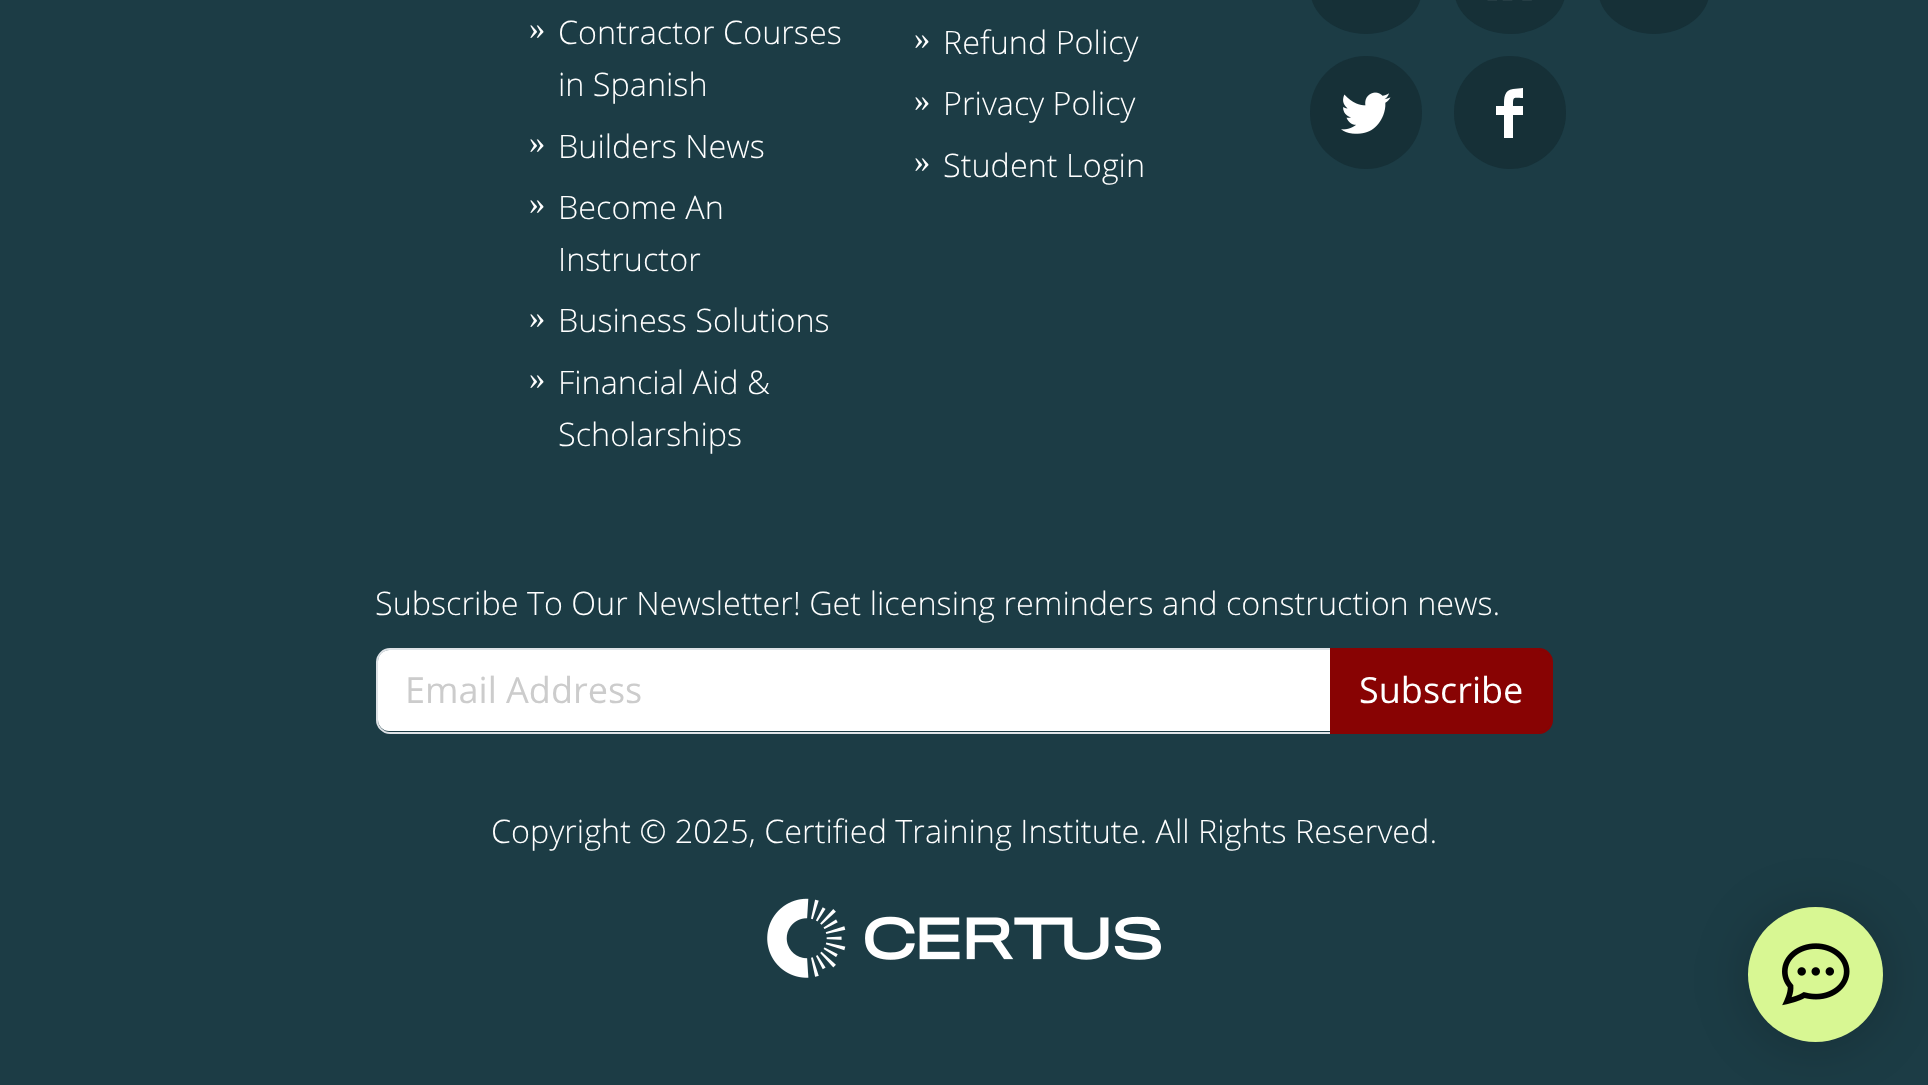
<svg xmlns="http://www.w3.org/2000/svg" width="1928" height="1085">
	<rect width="100%" height="100%" fill="#1C3C45" />
	<text x="529" y="39" font-family="Liberation Serif" font-size="32.4" fill="#FFFFFF">»</text>
	<g font-family="Open Sans" font-size="32.4" font-weight="300" fill="#FFFFFF">
		<text x="558" y="44">Contractor Courses</text>
		<text x="558" y="96">in Spanish</text>
	</g>
	<text x="529" y="153" font-family="Liberation Serif" font-size="32.4" fill="#FFFFFF">»</text>
	<text x="558" y="158" font-family="Open Sans" font-size="32.4" font-weight="300" fill="#FFFFFF">Builders News</text>
	<text x="529" y="214" font-family="Liberation Serif" font-size="32.4" fill="#FFFFFF">»</text>
	<g font-family="Open Sans" font-size="32.4" font-weight="300" fill="#FFFFFF">
		<text x="558" y="219">Become An</text>
		<text x="558" y="271">Instructor</text>
	</g>
	<text x="529" y="328" font-family="Liberation Serif" font-size="32.4" fill="#FFFFFF">»</text>
	<text x="558" y="332" font-family="Open Sans" font-size="32.4" font-weight="300" fill="#FFFFFF">Business Solutions</text>
	<text x="529" y="389" font-family="Liberation Serif" font-size="32.4" fill="#FFFFFF">»</text>
	<g font-family="Open Sans" font-size="32.4" font-weight="300" fill="#FFFFFF">
		<text x="558" y="394">Financial Aid &amp;</text>
		<text x="558" y="446">Scholarships</text>
	</g>
	<text x="914" y="49" font-family="Liberation Serif" font-size="32.4" fill="#FFFFFF">»</text>
	<text x="943" y="54" font-family="Open Sans" font-size="32.4" font-weight="300" fill="#FFFFFF">Refund Policy</text>
	<text x="914" y="111" font-family="Liberation Serif" font-size="32.4" fill="#FFFFFF">»</text>
	<text x="943" y="115" font-family="Open Sans" font-size="32.4" font-weight="300" fill="#FFFFFF">Privacy Policy</text>
	<text x="914" y="172" font-family="Liberation Serif" font-size="32.4" fill="#FFFFFF">»</text>
	<text x="943" y="177" font-family="Open Sans" font-size="32.4" font-weight="300" fill="#FFFFFF">Student Login</text>
	<rect x="1310" y="-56" width="112" height="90" rx="56" fill="#163037" />
	<rect x="1454" y="-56" width="112" height="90" rx="56" fill="#163037" />
	<image x="1487" y="0" width="45" height="1" href="assets/img1.png" />
	<rect x="1598" y="-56" width="112" height="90" rx="56" fill="#163037" />
	<rect x="1310" y="56" width="112" height="113" rx="56" fill="#163037" />
	<image x="1341" y="92" width="50" height="42" href="assets/img2.png" />
	<rect x="1454" y="56" width="112" height="113" rx="56" fill="#163037" />
	<path d="M1496 115V106H1504C1504 98 1504 90 1513 89L1523 88V98C1513 98 1513 96 1513 106H1523V115H1513V138H1504V115Z" fill="#FFFFFF" />
	<text x="375" y="615" font-family="Open Sans" font-size="32.4" font-weight="300" fill="#FFFFFF">Subscribe To Our Newsletter! Get licensing reminders and construction news.</text>
	<path d="M389 650H1330V731H389C383 731 378 726 378 720V661C378 655 383 650 389 650Z" fill="#FFFFFF" />
	<path d="M390 649H1331V733H390C383 733 377 727 377 720V662C377 655 383 649 390 649Z" fill="none" stroke="#DEE2E6" stroke-width="2" />
	<text x="405" y="703" font-family="Open Sans" font-size="36" fill="#CCCCCC">Email Address</text>
	<path d="M1331 649H1539C1546 649 1552 655 1552 662V720C1552 727 1546 733 1539 733H1331Z" fill="#880303" stroke="#880303" stroke-width="2" />
	<text x="1359" y="703" font-family="Open Sans" font-size="36" fill="#FFFFFF">Subscribe</text>
	<text x="491" y="843" font-family="Open Sans" font-size="32.4" font-weight="300" fill="#FFFFFF">Copyright © 2025, Certified Training Institute. All Rights Reserved.</text>
	<image x="767" y="898" width="394" height="80" href="assets/img3.png" />
	<rect x="1748" y="911" width="135" height="135" rx="67.5" fill="#000000" fill-opacity="0.2" filter="blur(27px)" />
	<circle cx="1815.5" cy="974.5" r="67.5" fill="#D8F793" />
	<image x="1782" y="943" width="68" height="63" href="assets/img4.png" />
</svg>
